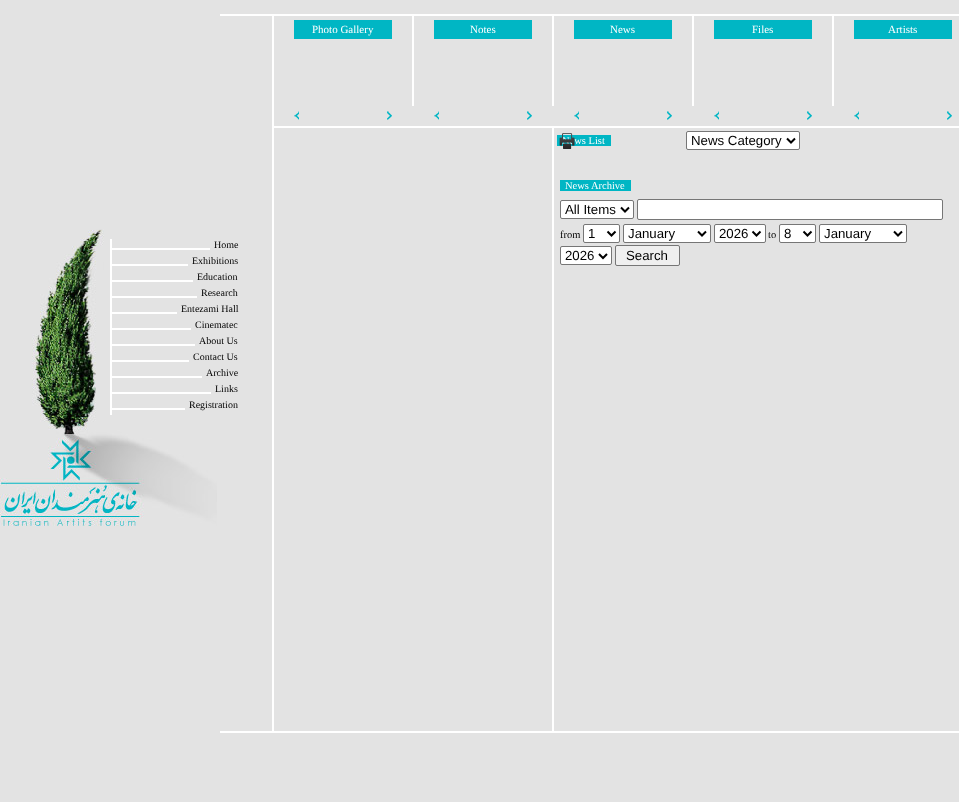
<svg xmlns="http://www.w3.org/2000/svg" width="959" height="802">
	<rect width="100%" height="100%" fill="#E3E3E3" />
	<image x="0" y="229" width="217" height="297" href="assets/img1.png" />
	<rect x="220" y="14" width="739" height="2" fill="#FFFFFF" />
	<rect x="220" y="731" width="739" height="2" fill="#FFFFFF" />
	<rect x="272" y="16" width="2" height="715" fill="#FFFFFF" />
	<rect x="274" y="126" width="685" height="2" fill="#FFFFFF" />
	<rect x="294" y="20" width="98" height="19" fill="#00B6C4" />
	<text x="312" y="33" font-family="Liberation Serif" font-size="11" fill="#FFFFFF">Photo Gallery</text>
	<image x="294" y="111" width="5" height="9" href="assets/img2.png" />
	<image x="387" y="111" width="5" height="9" href="assets/img3.png" />
	<rect x="412" y="16" width="2" height="90" fill="#FFFFFF" />
	<rect x="434" y="20" width="98" height="19" fill="#00B6C4" />
	<text x="470" y="33" font-family="Liberation Serif" font-size="11" fill="#FFFFFF">Notes</text>
	<image x="434" y="111" width="5" height="9" href="assets/img2.png" />
	<image x="527" y="111" width="5" height="9" href="assets/img3.png" />
	<rect x="552" y="16" width="2" height="90" fill="#FFFFFF" />
	<rect x="574" y="20" width="98" height="19" fill="#00B6C4" />
	<text x="610" y="33" font-family="Liberation Serif" font-size="11" fill="#FFFFFF">News</text>
	<image x="574" y="111" width="5" height="9" href="assets/img2.png" />
	<image x="667" y="111" width="5" height="9" href="assets/img3.png" />
	<rect x="692" y="16" width="2" height="90" fill="#FFFFFF" />
	<rect x="714" y="20" width="98" height="19" fill="#00B6C4" />
	<text x="752" y="33" font-family="Liberation Serif" font-size="11" fill="#FFFFFF">Files</text>
	<image x="714" y="111" width="5" height="9" href="assets/img2.png" />
	<image x="807" y="111" width="5" height="9" href="assets/img3.png" />
	<rect x="832" y="16" width="2" height="90" fill="#FFFFFF" />
	<rect x="854" y="20" width="98" height="19" fill="#00B6C4" />
	<text x="888" y="33" font-family="Liberation Serif" font-size="11" fill="#FFFFFF">Artists</text>
	<image x="854" y="111" width="5" height="9" href="assets/img2.png" />
	<image x="947" y="111" width="5" height="9" href="assets/img3.png" />
	<rect x="552" y="128" width="2" height="605" fill="#FFFFFF" />
	<rect x="557" y="135" width="54" height="11" fill="#00B6C4" />
	<text x="562" y="144" font-family="Liberation Serif" font-size="10.5" fill="#FFFFFF">News List</text>
	<image x="559" y="133" width="16" height="16" href="assets/img4.png" />
	<rect x="686.5" y="131.5" width="113" height="18" rx="1.5" fill="#FFFFFF" stroke="#767676" />
	<path d="M787 138.5L791 142.5L795 138.5" fill="none" stroke="#000000" stroke-width="2" />
	<text x="691" y="145" font-family="Liberation Sans" font-size="13.25" fill="#000000">News Category</text>
	<rect x="560" y="180" width="71" height="11" fill="#00B6C4" />
	<text x="565" y="189" font-family="Liberation Serif" font-size="10.5" fill="#FFFFFF">News Archive</text>
	<rect x="560.5" y="200.5" width="73" height="18" rx="1.5" fill="#FFFFFF" stroke="#767676" />
	<path d="M621 207.5L625 211.5L629 207.5" fill="none" stroke="#000000" stroke-width="2" />
	<text x="565" y="214" font-family="Liberation Sans" font-size="13.25" fill="#000000">All Items</text>
	<rect x="637.5" y="199.5" width="305" height="20" rx="1.5" fill="#FFFFFF" stroke="#767676" />
	<text x="560" y="238" font-family="Liberation Serif" font-size="10.5" fill="#000000">from</text>
	<rect x="583.5" y="224.5" width="36" height="18" rx="1.5" fill="#FFFFFF" stroke="#767676" />
	<path d="M607.5 231.5L611.5 235.5L615.5 231.5" fill="none" stroke="#000000" stroke-width="2" />
	<text x="588" y="238" font-family="Liberation Sans" font-size="13.25" fill="#000000">1</text>
	<rect x="623.5" y="224.5" width="87" height="18" rx="1.5" fill="#FFFFFF" stroke="#767676" />
	<path d="M698 231.5L702 235.5L706 231.5" fill="none" stroke="#000000" stroke-width="2" />
	<text x="628" y="238" font-family="Liberation Sans" font-size="13.25" fill="#000000">January</text>
	<rect x="714.5" y="224.5" width="51" height="18" rx="1.5" fill="#FFFFFF" stroke="#767676" />
	<path d="M752.5 231.5L756.5 235.5L760.5 231.5" fill="none" stroke="#000000" stroke-width="2" />
	<text x="719" y="238" font-family="Liberation Sans" font-size="13.25" fill="#000000">2026</text>
	<text x="768" y="238" font-family="Liberation Serif" font-size="10.5" fill="#000000">to</text>
	<rect x="779.5" y="224.5" width="36" height="18" rx="1.5" fill="#FFFFFF" stroke="#767676" />
	<path d="M803.5 231.5L807.5 235.5L811.5 231.5" fill="none" stroke="#000000" stroke-width="2" />
	<text x="784" y="238" font-family="Liberation Sans" font-size="13.25" fill="#000000">8</text>
	<rect x="819.5" y="224.5" width="87" height="18" rx="1.5" fill="#FFFFFF" stroke="#767676" />
	<path d="M894 231.5L898 235.5L902 231.5" fill="none" stroke="#000000" stroke-width="2" />
	<text x="824" y="238" font-family="Liberation Sans" font-size="13.25" fill="#000000">January</text>
	<rect x="560.5" y="246.5" width="51" height="18" rx="1.5" fill="#FFFFFF" stroke="#767676" />
	<path d="M599 254L603 258L607 254" fill="none" stroke="#000000" stroke-width="2" />
	<text x="565" y="260" font-family="Liberation Sans" font-size="13.25" fill="#000000">2026</text>
	<rect x="615.5" y="245.5" width="64" height="20" rx="1.5" fill="#EFEFEF" stroke="#767676" />
	<text x="626" y="260" font-family="Liberation Sans" font-size="13.25" fill="#000000">Search</text>
	<rect x="110" y="239" width="2" height="176" fill="#FFFFFF" />
	<rect x="112" y="248" width="98" height="2" fill="#FFFFFF" />
	<text x="214" y="248" font-family="Liberation Serif" font-size="10" fill="#000000">Home</text>
	<rect x="112" y="264" width="76" height="2" fill="#FFFFFF" />
	<text x="192" y="264" font-family="Liberation Serif" font-size="10" fill="#000000">Exhibitions</text>
	<rect x="112" y="280" width="81" height="2" fill="#FFFFFF" />
	<text x="197" y="280" font-family="Liberation Serif" font-size="10" fill="#000000">Education</text>
	<rect x="112" y="296" width="85" height="2" fill="#FFFFFF" />
	<text x="201" y="296" font-family="Liberation Serif" font-size="10" fill="#000000">Research</text>
	<rect x="112" y="312" width="65" height="2" fill="#FFFFFF" />
	<text x="181" y="312" font-family="Liberation Serif" font-size="10" fill="#000000">Entezami Hall</text>
	<rect x="112" y="328" width="79" height="2" fill="#FFFFFF" />
	<text x="195" y="328" font-family="Liberation Serif" font-size="10" fill="#000000">Cinematec</text>
	<rect x="112" y="344" width="83" height="2" fill="#FFFFFF" />
	<text x="199" y="344" font-family="Liberation Serif" font-size="10" fill="#000000">About Us</text>
	<rect x="112" y="360" width="77" height="2" fill="#FFFFFF" />
	<text x="193" y="360" font-family="Liberation Serif" font-size="10" fill="#000000">Contact Us</text>
	<rect x="112" y="376" width="90" height="2" fill="#FFFFFF" />
	<text x="206" y="376" font-family="Liberation Serif" font-size="10" fill="#000000">Archive</text>
	<rect x="112" y="392" width="99" height="2" fill="#FFFFFF" />
	<text x="215" y="392" font-family="Liberation Serif" font-size="10" fill="#000000">Links</text>
	<rect x="112" y="408" width="73" height="2" fill="#FFFFFF" />
	<text x="189" y="408" font-family="Liberation Serif" font-size="10" fill="#000000">Registration</text>
</svg>
